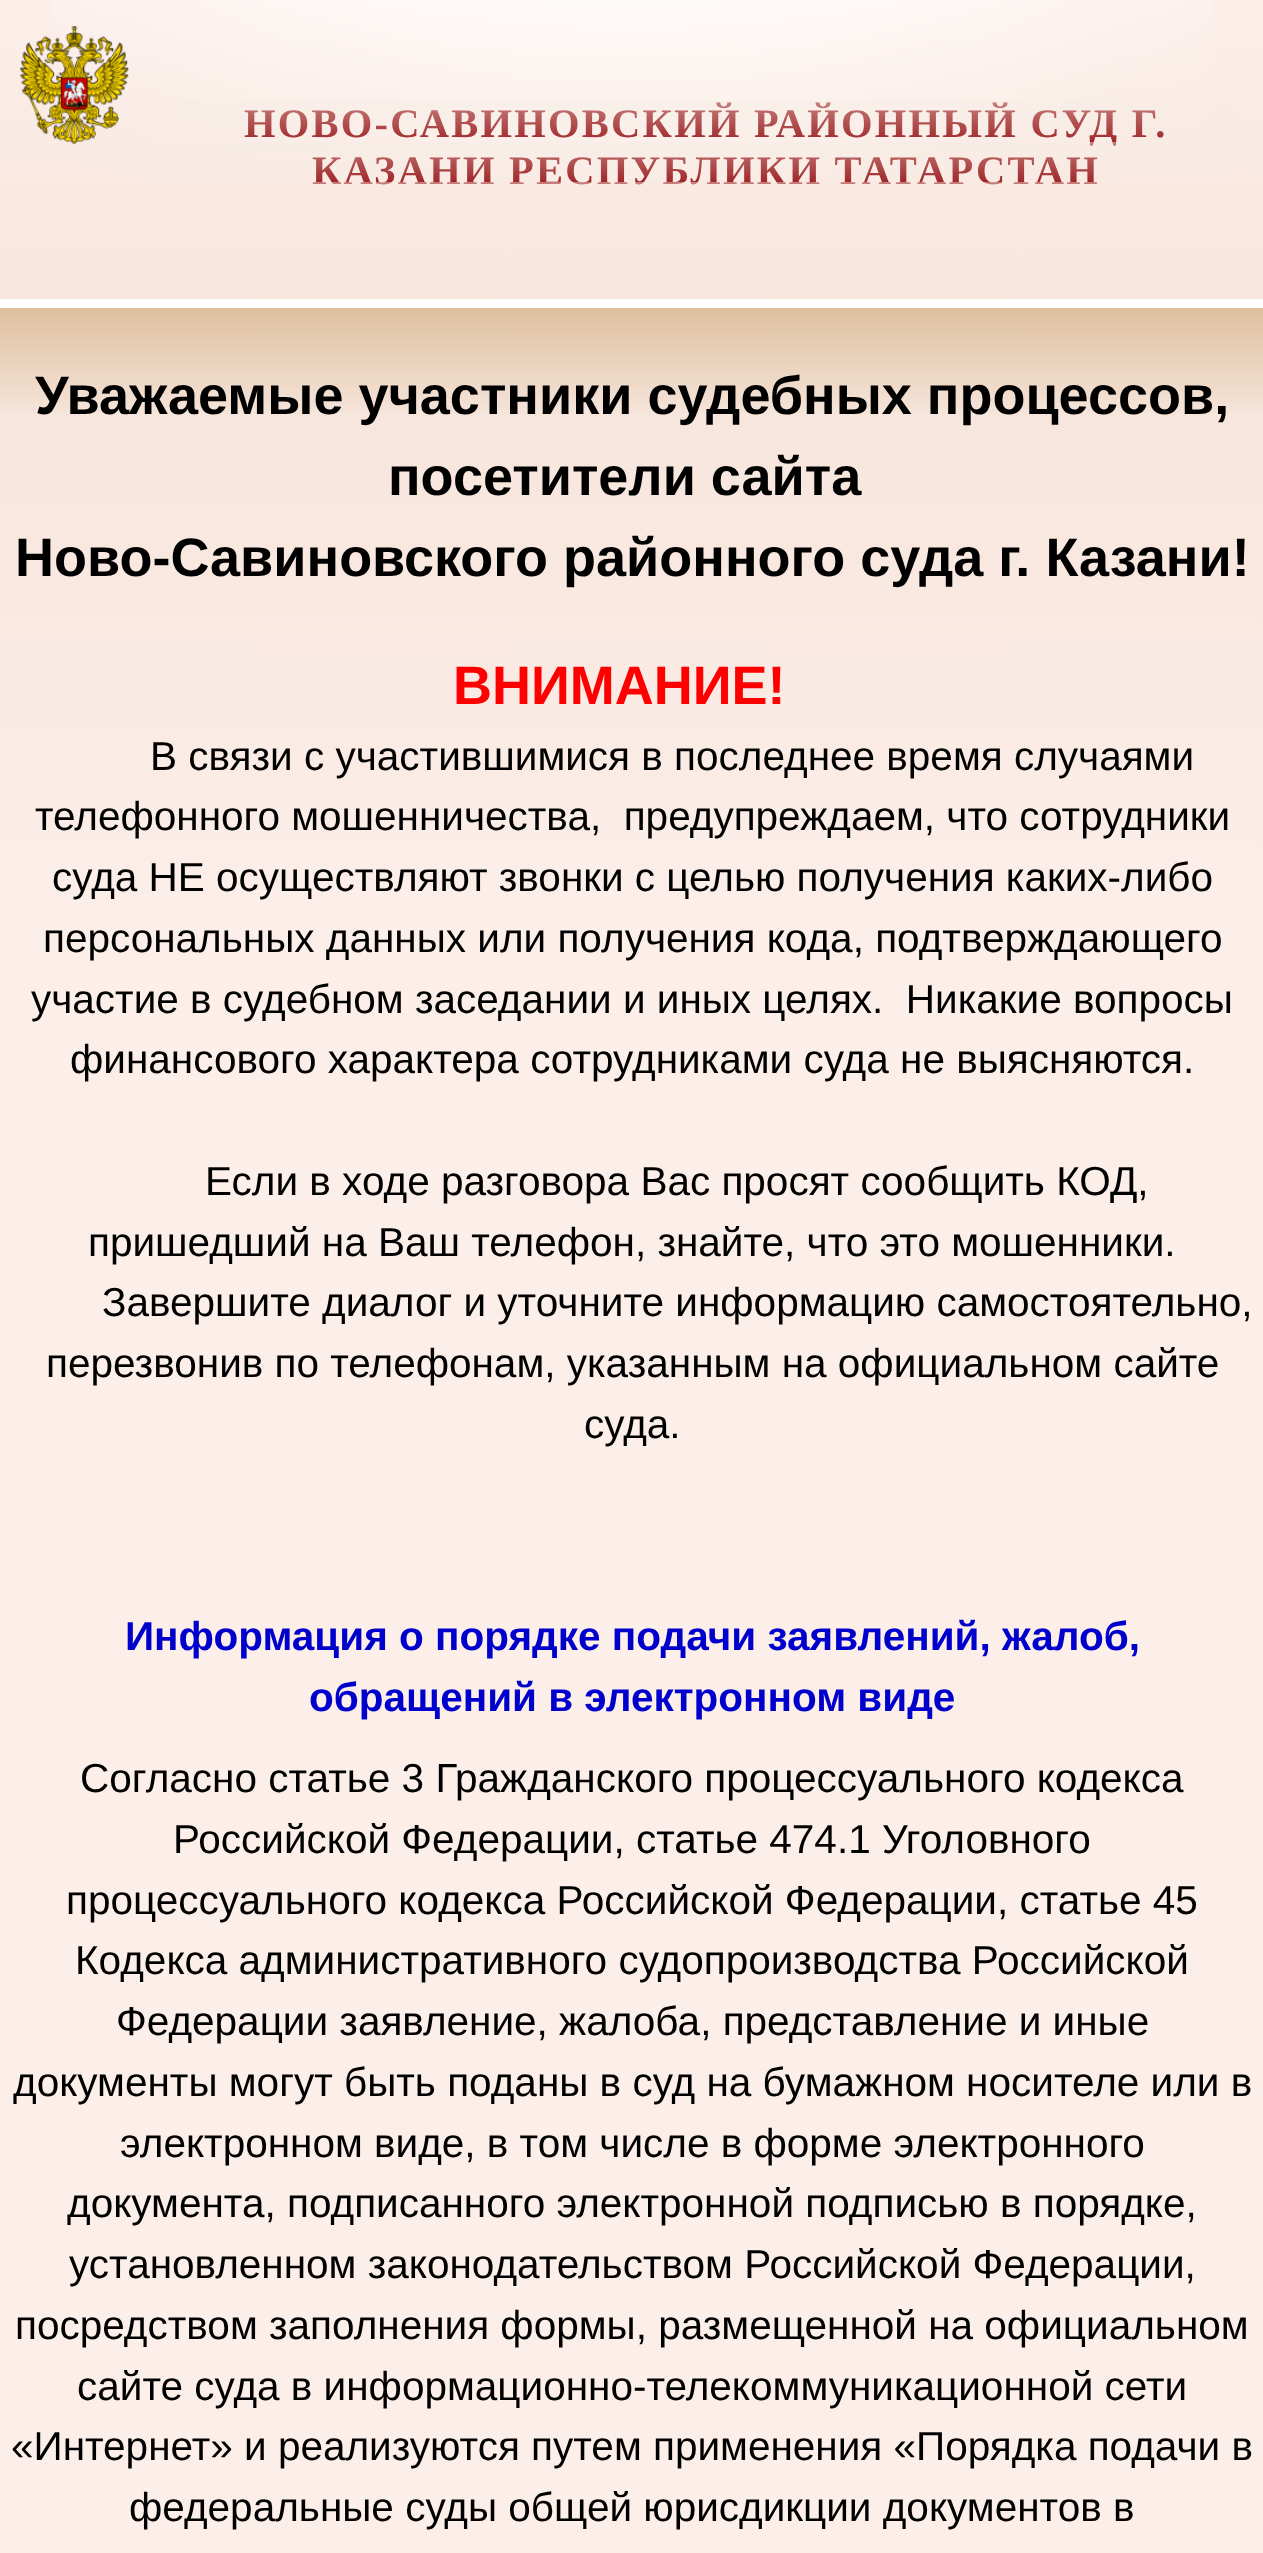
<svg xmlns="http://www.w3.org/2000/svg" width="1263" height="2553">
	<defs>
		<linearGradient id="g1" gradientUnits="userSpaceOnUse" x1="632" y1="0" x2="632" y2="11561"><stop offset="0" stop-color="#FCEEE9" /><stop offset="0.03" stop-color="#F6E5DB" /><stop offset="0.08" stop-color="#FCEEE9" /></linearGradient>
		<linearGradient id="g2" gradientUnits="userSpaceOnUse" x1="191" y1="101" x2="191" y2="142"><stop offset="0" stop-color="#F5EDE4" stop-opacity="0.44" /><stop offset="1" stop-color="#F5EDE4" stop-opacity="0" /></linearGradient>
		<linearGradient id="g3" gradientUnits="userSpaceOnUse" x1="191" y1="142" x2="191" y2="182"><stop offset="0" stop-color="#F5EDE4" stop-opacity="0.44" /><stop offset="1" stop-color="#F5EDE4" stop-opacity="0" /></linearGradient>
		<linearGradient id="g4" gradientUnits="userSpaceOnUse" x1="191" y1="182" x2="191" y2="223"><stop offset="0" stop-color="#F5EDE4" stop-opacity="0.44" /><stop offset="1" stop-color="#F5EDE4" stop-opacity="0" /></linearGradient>
		<linearGradient id="g5" gradientUnits="userSpaceOnUse" x1="632" y1="308" x2="632" y2="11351"><stop offset="0" stop-color="#DEC0A0" /><stop offset="0.01" stop-color="#DEC0A0" stop-opacity="0" /></linearGradient>
	</defs>
	<rect width="100%" height="100%" fill="#FFFFFF" />
	<rect x="0" y="0" width="1263" height="2553" fill="url(#g1)" />
	<image x="52" y="0" width="1161" height="181" href="assets/img1.png" />
	<image x="20" y="26" width="109" height="118" href="assets/img2.png" />
	<text x="244" y="137" font-family="Liberation Serif" font-size="40.5" font-weight="700" letter-spacing="2.25" fill="#A0282B">НОВО-САВИНОВСКИЙ РАЙОННЫЙ СУД Г.</text>
	<rect x="180" y="101" width="1053" height="39" fill="url(#g2)" />
	<text x="312" y="184" font-family="Liberation Serif" font-size="40.5" font-weight="700" letter-spacing="2.25" fill="#A0282B">КАЗАНИ РЕСПУБЛИКИ ТАТАРСТАН</text>
	<rect x="180" y="142" width="1053" height="38" fill="url(#g3)" />
	<rect x="312" y="182" width="786" height="3" fill="url(#g4)" />
	<rect x="0" y="299" width="1263" height="9" fill="#FFFFFF" />
	<rect x="0" y="308" width="1263" height="105" fill="url(#g5)" />
	<g font-family="Liberation Sans" font-size="54" font-weight="700" fill="#000000">
		<text x="35" y="414">Уважаемые участники судебных процессов,</text>
		<text x="388" y="495">посетители сайта</text>
		<text x="15" y="576">Ново-Савиновского районного суда г. Казани!</text>
	</g>
	<text x="453" y="704" font-family="Liberation Sans" font-size="54" font-weight="700" fill="#FF0000">ВНИМАНИЕ!</text>
	<g font-family="Liberation Sans" font-size="40.5" fill="#000000">
		<text x="150" y="770">В связи с участившимися в последнее время случаями</text>
		<text x="35" y="830" xml:space="preserve">телефонного мошенничества,  предупреждаем, что сотрудники</text>
		<text x="52" y="891">суда НЕ осуществляют звонки с целью получения каких-либо</text>
		<text x="43" y="952">персональных данных или получения кода, подтверждающего</text>
		<text x="31" y="1013" xml:space="preserve">участие в судебном заседании и иных целях.  Никакие вопросы</text>
		<text x="70" y="1073">финансового характера сотрудниками суда не выясняются.</text>
		<text x="205" y="1195">Если в ходе разговора Вас просят сообщить КОД,</text>
		<text x="88" y="1256">пришедший на Ваш телефон, знайте, что это мошенники.</text>
		<text x="102" y="1316">Завершите диалог и уточните информацию самостоятельно,</text>
		<text x="46" y="1377">перезвонив по телефонам, указанным на официальном сайте</text>
		<text x="584" y="1438">суда.</text>
	</g>
	<g font-family="Liberation Sans" font-size="40.5" font-weight="700" fill="#0000CD">
		<text x="125" y="1650">Информация о порядке подачи заявлений, жалоб,</text>
		<text x="309" y="1711">обращений в электронном виде</text>
	</g>
	<g font-family="Liberation Sans" font-size="40.5" fill="#000000">
		<text x="80" y="1792">Согласно статье 3 Гражданского процессуального кодекса</text>
		<text x="173" y="1853">Российской Федерации, статье 474.1 Уголовного</text>
		<text x="66" y="1914">процессуального кодекса Российской Федерации, статье 45</text>
		<text x="75" y="1974">Кодекса административного судопроизводства Российской</text>
		<text x="116" y="2035">Федерации заявление, жалоба, представление и иные</text>
		<text x="13" y="2096">документы могут быть поданы в суд на бумажном носителе или в</text>
		<text x="120" y="2157">электронном виде, в том числе в форме электронного</text>
		<text x="67" y="2217">документа, подписанного электронной подписью в порядке,</text>
		<text x="69" y="2278">установленном законодательством Российской Федерации,</text>
		<text x="15" y="2339">посредством заполнения формы, размещенной на официальном</text>
		<text x="77" y="2400">сайте суда в информационно-телекоммуникационной сети</text>
		<text x="11" y="2460">«Интернет» и реализуются путем применения «Порядка подачи в</text>
		<text x="129" y="2521">федеральные суды общей юрисдикции документов в</text>
	</g>
</svg>
